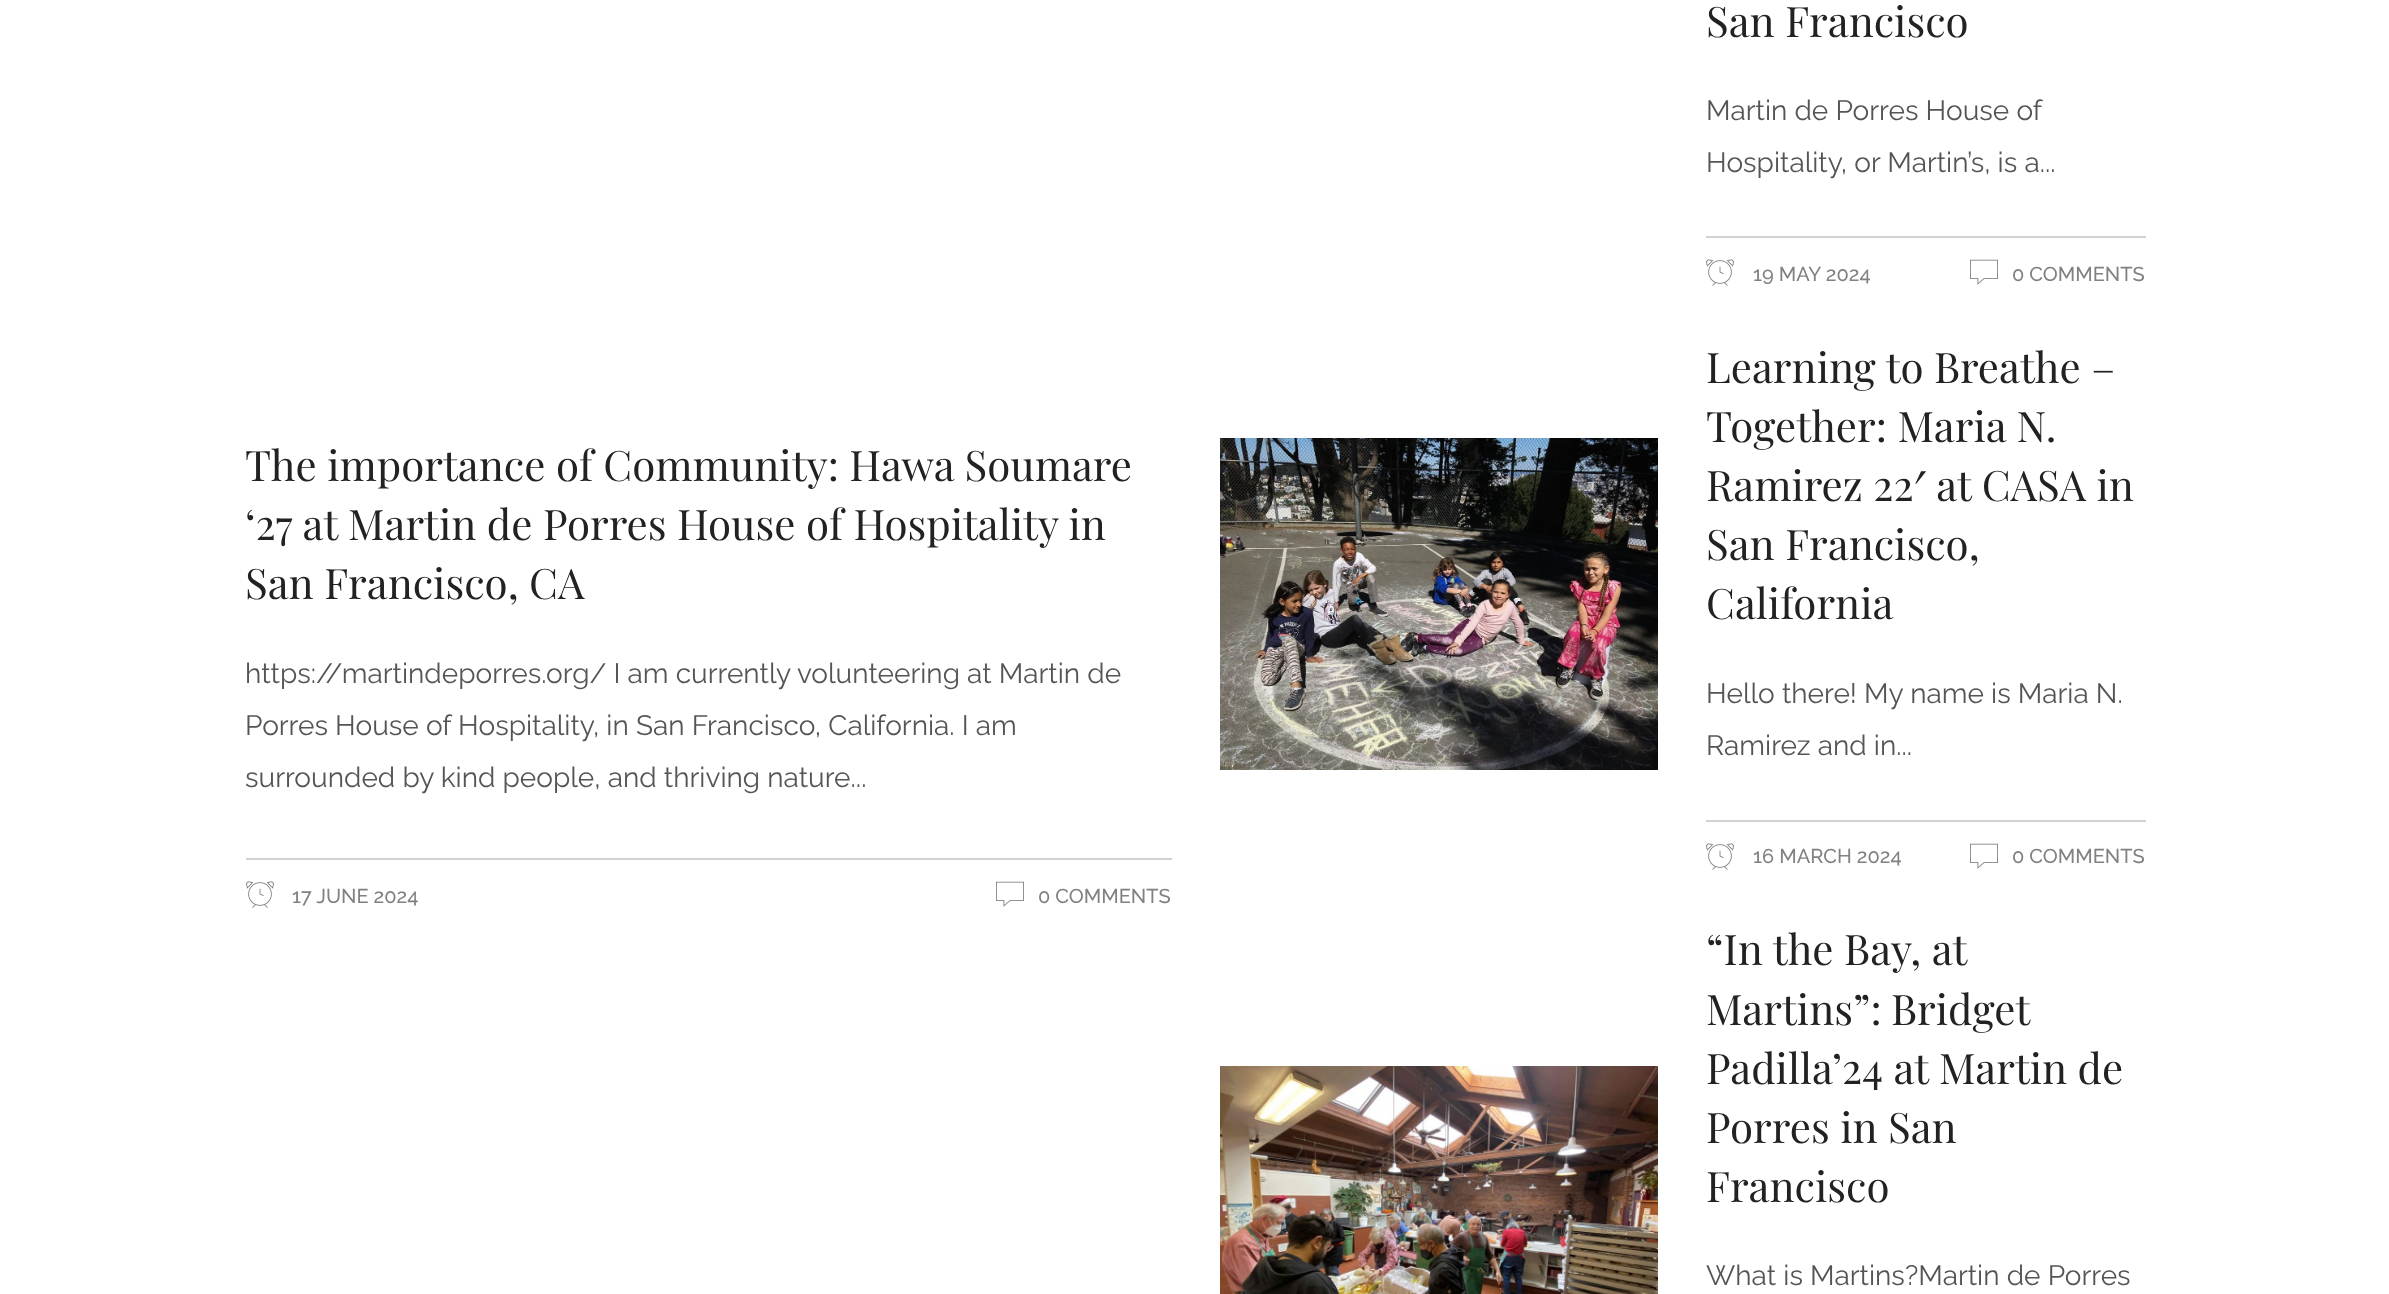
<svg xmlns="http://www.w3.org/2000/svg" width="2389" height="1294">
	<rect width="100%" height="100%" fill="#FFFFFF" />
	<g font-family="Playfair Display" font-size="42" fill="#222222">
		<text x="245" y="481">The importance of Community: Hawa Soumare</text>
		<text x="245" y="540">‘27 at Martin de Porres House of Hospitality in</text>
		<text x="245" y="599">San Francisco, CA</text>
	</g>
	<g font-family="Raleway" font-size="28" fill="#555555">
		<text x="245" y="683">https://martindeporres.org/ I am currently volunteering at Martin de</text>
		<text x="245" y="735">Porres House of Hospitality, in San Francisco, California. I am</text>
		<text x="245" y="787">surrounded by kind people, and thriving nature...</text>
	</g>
	<rect x="246" y="858" width="926" height="2" fill="#D1D1D1" />
	<image x="246" y="881" width="28" height="27" href="assets/img1.png" />
	<text x="292" y="903" font-family="Raleway" font-size="20" font-weight="500" fill="#818181">17 JUNE 2024</text>
	<image x="996" y="881" width="28" height="26" href="assets/img2.png" />
	<text x="1038" y="903" font-family="Raleway" font-size="20" font-weight="500" fill="#818181">0 COMMENTS</text>
	<text x="1706" y="37" font-family="Playfair Display" font-size="42" fill="#222222">San Francisco</text>
	<g font-family="Raleway" font-size="28" fill="#555555">
		<text x="1706" y="120">Martin de Porres House of</text>
		<text x="1706" y="172">Hospitality, or Martin’s, is a...</text>
	</g>
	<rect x="1706" y="236" width="440" height="2" fill="#D1D1D1" />
	<image x="1706" y="259" width="28" height="27" href="assets/img1.png" />
	<text x="1753" y="281" font-family="Raleway" font-size="20" font-weight="500" fill="#818181">19 MAY 2024</text>
	<image x="1970" y="259" width="28" height="26" href="assets/img2.png" />
	<text x="2012" y="281" font-family="Raleway" font-size="20" font-weight="500" fill="#818181">0 COMMENTS</text>
	<image x="1220" y="438" width="438" height="332" href="assets/img3.png" />
	<g font-family="Playfair Display" font-size="42" fill="#222222">
		<text x="1706" y="383">Learning to Breathe –</text>
		<text x="1706" y="442">Together: Maria N.</text>
		<text x="1706" y="501">Ramirez 22′ at CASA in</text>
		<text x="1706" y="560">San Francisco,</text>
		<text x="1706" y="619">California</text>
	</g>
	<g font-family="Raleway" font-size="28" fill="#555555">
		<text x="1706" y="703">Hello there! My name is Maria N.</text>
		<text x="1706" y="755">Ramirez and in...</text>
	</g>
	<rect x="1706" y="820" width="440" height="2" fill="#D1D1D1" />
	<image x="1706" y="843" width="28" height="27" href="assets/img1.png" />
	<text x="1753" y="863" font-family="Raleway" font-size="20" font-weight="500" fill="#818181">16 MARCH 2024</text>
	<image x="1970" y="843" width="28" height="26" href="assets/img2.png" />
	<text x="2012" y="863" font-family="Raleway" font-size="20" font-weight="500" fill="#818181">0 COMMENTS</text>
	<image x="1220" y="1066" width="438" height="228" href="assets/img4.png" />
	<g font-family="Playfair Display" font-size="42" fill="#222222">
		<text x="1706" y="965">“In the Bay, at</text>
		<text x="1706" y="1025" word-spacing="-1">Martins”: Bridget</text>
		<text x="1706" y="1084">Padilla’24 at Martin de</text>
		<text x="1706" y="1143">Porres in San</text>
		<text x="1706" y="1202">Francisco</text>
	</g>
	<text x="1706" y="1285" font-family="Raleway" font-size="28" fill="#555555">What is Martins?Martin de Porres</text>
</svg>
